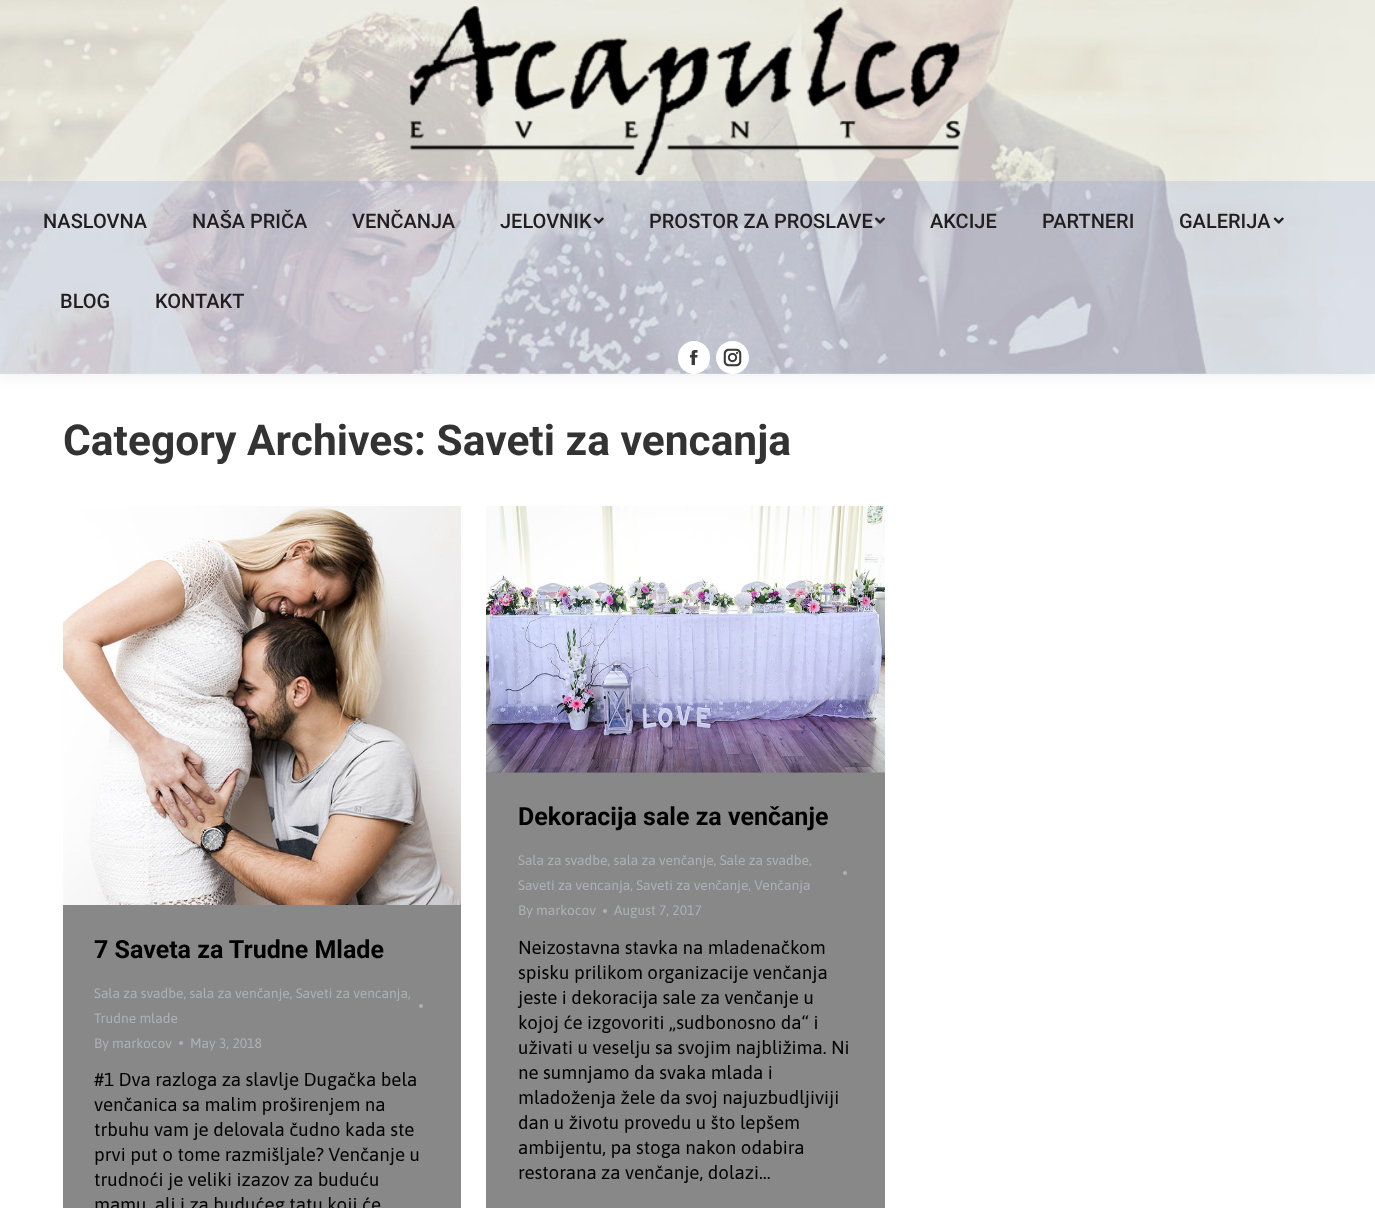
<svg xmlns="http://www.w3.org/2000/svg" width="1375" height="1208">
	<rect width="100%" height="100%" fill="#FFFFFF" />
	<rect x="-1" y="-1" width="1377" height="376" fill="#000000" fill-opacity="0.07" filter="blur(9.5px)" />
	<image x="0" y="0" width="1375" height="374" href="assets/img1.png" />
	<image x="409" y="6" width="552" height="170" href="assets/img2.png" />
	<rect x="0" y="181" width="1375" height="193" fill="#5C7CDF" fill-opacity="0.15" />
	<g font-family="Roboto" font-size="20" font-weight="500" fill="#221E1F">
		<text x="43" y="228">NASLOVNA</text>
		<text x="192" y="228">NAŠA PRIČA</text>
		<text x="352" y="228">VENČANJA</text>
		<text x="500" y="228">JELOVNIK</text>
	</g>
	<image x="593" y="217" width="11" height="7" href="assets/img3.png" />
	<text x="649" y="228" font-family="Roboto" font-size="20" font-weight="500" fill="#221E1F">PROSTOR ZA PROSLAVE</text>
	<image x="875" y="217" width="10" height="7" href="assets/img4.png" />
	<g font-family="Roboto" font-size="20" font-weight="500" fill="#221E1F">
		<text x="930" y="228">AKCIJE</text>
		<text x="1042" y="228">PARTNERI</text>
		<text x="1179" y="228">GALERIJA</text>
	</g>
	<image x="1273" y="217" width="11" height="7" href="assets/img5.png" />
	<g font-family="Roboto" font-size="20" font-weight="500" fill="#221E1F">
		<text x="60" y="308">BLOG</text>
		<text x="155" y="308">KONTAKT</text>
	</g>
	<rect x="678" y="341" width="32" height="33" rx="16" fill="#FFFFFF" />
	<image x="690" y="350" width="8" height="15" href="assets/img6.png" />
	<circle cx="732.5" cy="357.5" r="16.5" fill="#FFFFFF" />
	<image x="723" y="348" width="19" height="19" href="assets/img7.png" />
	<text x="63" y="455" font-family="Roboto" font-size="42.5" font-weight="700" fill="#333333">Category Archives: Saveti za vencanja</text>
	<rect x="63" y="905" width="398" height="303" fill="#888888" />
	<image x="63" y="506" width="398" height="399" href="assets/img8.png" />
	<text x="94" y="958" font-family="Roboto" font-size="25" font-weight="700" fill="#000000">7 Saveta za Trudne Mlade</text>
	<text x="94" y="998" font-family="Asap" font-size="13.75" fill="#ADB0B6">Sala za svadbe, sala za venčanje, Saveti za vencanja,</text>
	<circle cx="421" cy="1006" r="2" fill="#ADB0B6" />
	<g font-family="Asap" font-size="13.75" fill="#ADB0B6">
		<text x="94" y="1023">Trudne mlade</text>
		<text x="94" y="1048">By markocov</text>
	</g>
	<circle cx="181" cy="1043" r="2" fill="#ADB0B6" />
	<text x="190" y="1048" font-family="Asap" font-size="13.75" fill="#ADB0B6">May 3, 2018</text>
	<g font-family="Asap" font-size="18.75" fill="#000000">
		<text x="94" y="1086">#1 Dva razloga za slavlje Dugačka bela</text>
		<text x="94" y="1111">venčanica sa malim proširenjem na</text>
		<text x="94" y="1136">trbuhu vam je delovala čudno kada ste</text>
		<text x="94" y="1161">prvi put o tome razmišljale? Venčanje u</text>
		<text x="94" y="1186">trudnoći je veliki izazov za buduću</text>
		<text x="94" y="1211">mamu, ali i za budućeg tatu koji će</text>
	</g>
	<rect x="486" y="773" width="399" height="435" fill="#888888" />
	<rect x="486" y="772" width="399" height="1" fill="#818181" />
	<image x="486" y="506" width="399" height="267" href="assets/img9.png" />
	<text x="518" y="825" font-family="Roboto" font-size="25" font-weight="700" fill="#000000">Dekoracija sale za venčanje</text>
	<text x="518" y="865" font-family="Asap" font-size="13.75" fill="#ADB0B6">Sala za svadbe, sala za venčanje, Sale za svadbe,</text>
	<circle cx="845" cy="873" r="2" fill="#ADB0B6" />
	<g font-family="Asap" font-size="13.75" fill="#ADB0B6">
		<text x="518" y="890">Saveti za vencanja, Saveti za venčanje, Venčanja</text>
		<text x="518" y="915">By markocov</text>
	</g>
	<circle cx="605" cy="911" r="2" fill="#ADB0B6" />
	<text x="614" y="915" font-family="Asap" font-size="13.75" fill="#ADB0B6">August 7, 2017</text>
	<g font-family="Asap" font-size="18.75" fill="#000000">
		<text x="518" y="954">Neizostavna stavka na mladenačkom</text>
		<text x="518" y="979">spisku prilikom organizacije venčanja</text>
		<text x="518" y="1004">jeste i dekoracija sale za venčanje u</text>
		<text x="518" y="1029">kojoj će izgovoriti „sudbonosno da“ i</text>
		<text x="518" y="1054">uživati u veselju sa svojim najbližima. Ni</text>
		<text x="518" y="1079">ne sumnjamo da svaka mlada i</text>
		<text x="518" y="1104">mladoženja žele da svoj najuzbudljiviji</text>
		<text x="518" y="1129">dan u životu provedu u što lepšem</text>
		<text x="518" y="1154">ambijentu, pa stoga nakon odabira</text>
		<text x="518" y="1179">restorana za venčanje, dolazi…</text>
	</g>
</svg>
